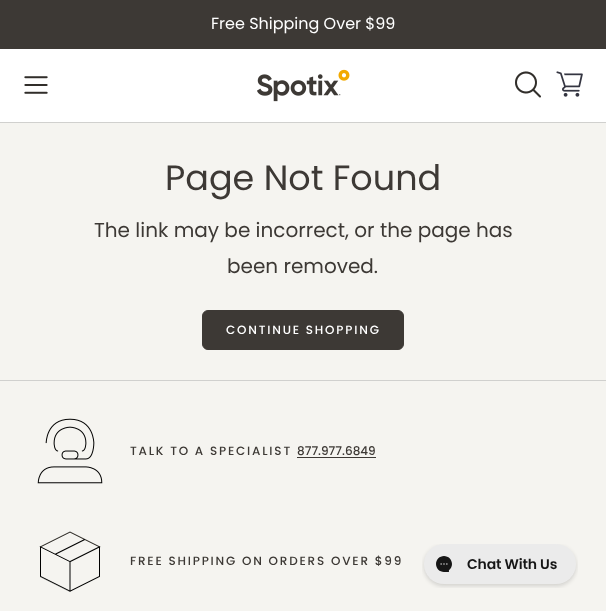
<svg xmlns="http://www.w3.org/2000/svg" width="606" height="611">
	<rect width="100%" height="100%" fill="#FFFFFF" />
	<rect x="0" y="0" width="606" height="49" fill="#3D3935" />
	<text x="211" y="29" font-family="Poppins" font-size="16" fill="#FFFFFF">Free Shipping Over $99</text>
	<rect x="0" y="122" width="606" height="1" fill="#D0D0CE" />
	<image x="24" y="76" width="24" height="18" href="assets/img1.png" />
	<image x="257" y="69" width="93" height="33" href="assets/img2.png" />
	<image x="515" y="71" width="26" height="27" href="assets/img3.png" />
	<image x="556" y="71" width="27" height="26" href="assets/img4.png" />
	<rect x="0" y="123" width="606" height="257" fill="#F5F4F0" />
	<text x="165" y="190" font-family="Poppins" font-size="35" fill="#3D3935">Page Not Found</text>
	<g font-family="Poppins" font-size="20" fill="#3D3935">
		<text x="94" y="237">The link may be incorrect, or the page has</text>
		<text x="227" y="273">been removed.</text>
	</g>
	<rect x="202.5" y="310.5" width="201" height="39" rx="5.5" fill="#3D3935" stroke="#3D3935" />
	<text x="226" y="334" font-family="Poppins" font-size="12" font-weight="500" letter-spacing="1.8" fill="#FFFFFF">CONTINUE SHOPPING</text>
	<rect x="0" y="381" width="606" height="230" fill="#F5F4F0" />
	<rect x="0" y="380" width="606" height="1" fill="#D0D0CE" />
	<image x="37" y="418" width="66" height="66" href="assets/img5.png" />
	<text x="130" y="455" font-family="Poppins" font-size="12" font-weight="500" letter-spacing="1.8" fill="#3D3935">TALK TO A SPECIALIST</text>
	<text x="297" y="455" font-family="Poppins" font-size="12" font-weight="500" fill="#3D3935">877.977.6849</text>
	<rect x="297" y="457" width="79" height="1" fill="#3D3935" />
	<image x="39" y="531" width="62" height="61" href="assets/img6.png" />
	<text x="130" y="565" font-family="Poppins" font-size="12" font-weight="500" letter-spacing="1.8" fill="#3D3935">FREE SHIPPING ON ORDERS OVER $99</text>
	<image x="422" y="544" width="156" height="44" href="assets/img7.png" />
</svg>
